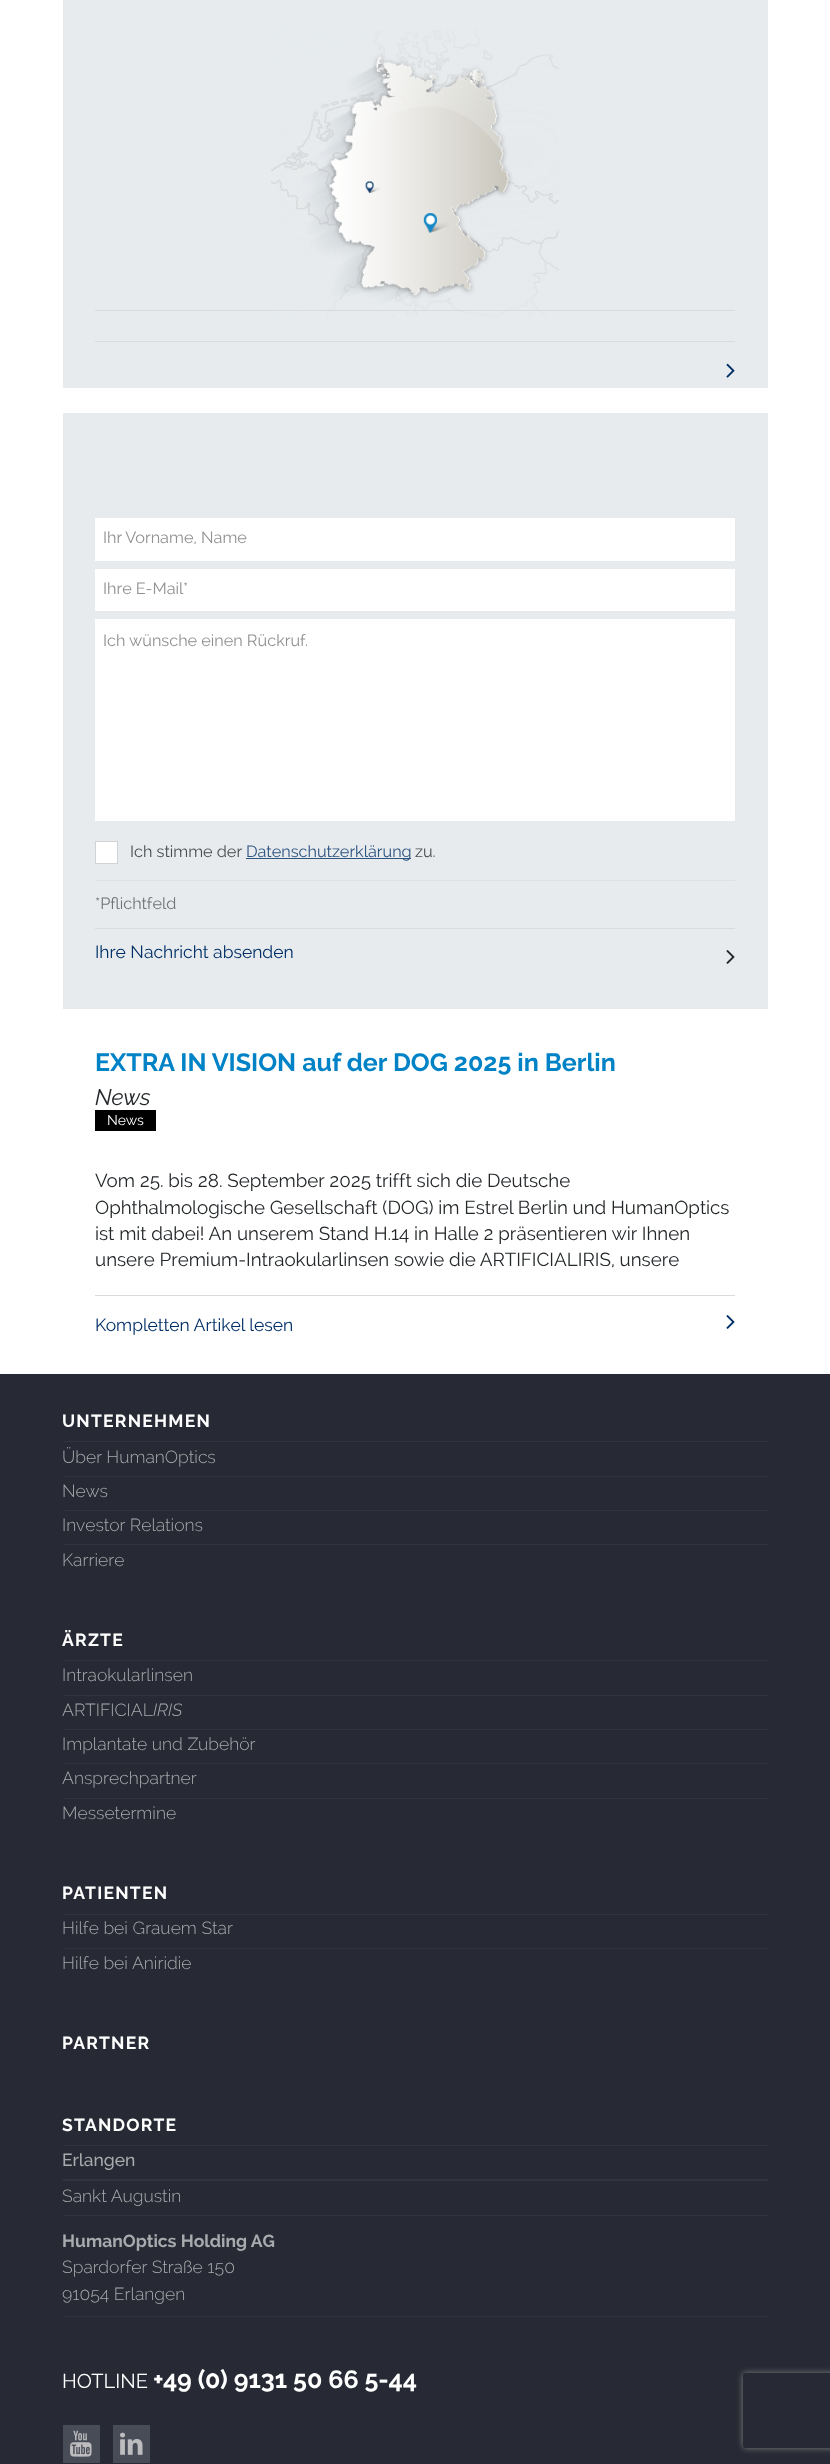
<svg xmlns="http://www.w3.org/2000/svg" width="830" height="2464">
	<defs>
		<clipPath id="clip1"><path d="M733 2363H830V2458H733ZM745.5 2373H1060.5C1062 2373 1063 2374 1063 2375.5V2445.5C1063 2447 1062 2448 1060.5 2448H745.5C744 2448 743 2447 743 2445.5V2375.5C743 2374 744 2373 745.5 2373Z" clip-rule="evenodd" /></clipPath>
	</defs>
	<rect width="100%" height="100%" fill="#FFFFFF" />
	<rect x="63" y="0" width="705" height="388" fill="#E7EBED" />
	<image x="271" y="30" width="288" height="287" href="assets/img1.png" />
	<rect x="95" y="310" width="640" height="1" fill="#D8DCDD" />
	<rect x="95" y="341" width="640" height="1" fill="#D8DCDD" />
	<image x="726" y="363" width="9" height="15" href="assets/img2.png" />
	<rect x="63" y="413" width="705" height="596" fill="#E7EBED" />
	<rect x="95" y="518" width="640" height="43" fill="#FFFFFF" />
	<text x="103" y="543" font-family="Raleway" font-size="16.25" fill="#919191">Ihr Vorname, Name</text>
	<rect x="95" y="569" width="640" height="42" fill="#FFFFFF" />
	<text x="103" y="594" font-family="Raleway" font-size="16.25" fill="#919191">Ihre E-Mail*</text>
	<rect x="95" y="619" width="640" height="202" fill="#FFFFFF" />
	<text x="103" y="646" font-family="Raleway" font-size="16.25" fill="#919191">Ich wünsche einen Rückruf.</text>
	<rect x="95.5" y="841.5" width="22" height="22" fill="#FFFFFF" stroke="#D1D3D5" />
	<text x="130" y="857" font-family="Raleway" font-size="16.25" fill="#4A4E50">Ich stimme der</text>
	<rect x="246" y="858" width="165" height="1" fill="#2E5582" />
	<text x="246" y="857" font-family="Raleway" font-size="16.25" fill="#2E5482">Datenschutzerklärung</text>
	<text x="415" y="857" font-family="Raleway" font-size="16.25" fill="#4A4E50">zu.</text>
	<rect x="95" y="880" width="640" height="1" fill="#DEE2E3" />
	<text x="95" y="909" font-family="Raleway" font-size="16.25" fill="#717577">*Pflichtfeld</text>
	<rect x="95" y="928" width="640" height="1" fill="#D8DCDD" />
	<text x="95" y="958" font-family="Raleway" font-size="17.5" fill="#002F67">Ihre Nachricht absenden</text>
	<image x="726" y="950" width="9" height="14" href="assets/img3.png" />
	<text x="95" y="1071" font-family="Raleway" font-size="25" font-weight="700" fill="#0082C6">EXTRA IN VISION auf der DOG 2025 in Berlin</text>
	<text x="95" y="1105" font-family="Raleway" font-size="22.5" font-style="italic" fill="#232729">News</text>
	<rect x="95" y="1110" width="61" height="21" fill="#000000" />
	<text x="107" y="1125" font-family="Raleway" font-size="14" fill="#FFFFFF">News</text>
	<g font-family="Raleway" font-size="18.75" fill="#232729">
		<text x="95" y="1187">Vom 25. bis 28. September 2025 trifft sich die Deutsche</text>
		<text x="95" y="1214">Ophthalmologische Gesellschaft (DOG) im Estrel Berlin und HumanOptics</text>
		<text x="95" y="1240">ist mit dabei! An unserem Stand H.14 in Halle 2 präsentieren wir Ihnen</text>
		<text x="95" y="1266">unsere Premium-Intraokularlinsen sowie die ARTIFICIALIRIS, unsere</text>
	</g>
	<rect x="95" y="1295" width="640" height="1" fill="#D8DCDD" />
	<text x="95" y="1331" font-family="Raleway" font-size="17.5" fill="#002F67">Kompletten Artikel lesen</text>
	<image x="726" y="1315" width="9" height="14" href="assets/img4.png" />
	<rect x="0" y="1374" width="830" height="1090" fill="#272A34" />
	<text x="62" y="1427" font-family="Raleway" font-size="17.5" font-weight="700" letter-spacing="1.25" fill="#FFFFFF">UNTERNEHMEN</text>
	<rect x="63" y="1441" width="705" height="1" fill="#31343D" />
	<text x="62" y="1463" font-family="Raleway" font-size="17.5" font-weight="300" fill="#A9AAAE">Über HumanOptics</text>
	<rect x="63" y="1476" width="705" height="1" fill="#31343D" />
	<text x="62" y="1497" font-family="Raleway" font-size="17.5" font-weight="300" fill="#A9AAAE">News</text>
	<rect x="63" y="1510" width="705" height="1" fill="#31343D" />
	<text x="62" y="1531" font-family="Raleway" font-size="17.5" font-weight="300" fill="#A9AAAE">Investor Relations</text>
	<rect x="63" y="1544" width="705" height="1" fill="#31343D" />
	<text x="62" y="1566" font-family="Raleway" font-size="17.5" font-weight="300" fill="#A9AAAE">Karriere</text>
	<text x="62" y="1646" font-family="Raleway" font-size="17.5" font-weight="700" letter-spacing="1.25" fill="#FFFFFF">ÄRZTE</text>
	<rect x="63" y="1660" width="705" height="1" fill="#31343D" />
	<text x="62" y="1681" font-family="Raleway" font-size="17.5" font-weight="300" fill="#A9AAAE">Intraokularlinsen</text>
	<rect x="63" y="1695" width="705" height="1" fill="#31343D" />
	<text x="62" y="1716" font-family="Raleway" font-size="17.5" font-weight="300" fill="#A9AAAE">ARTIFICIAL</text>
	<text x="153" y="1716" font-family="Raleway" font-size="17.5" font-weight="300" font-style="italic" fill="#A9AAAE">IRIS</text>
	<rect x="63" y="1729" width="705" height="1" fill="#31343D" />
	<text x="62" y="1750" font-family="Raleway" font-size="17.5" font-weight="300" fill="#A9AAAE">Implantate und Zubehör</text>
	<rect x="63" y="1763" width="705" height="1" fill="#31343D" />
	<text x="62" y="1784" font-family="Raleway" font-size="17.5" font-weight="300" fill="#A9AAAE">Ansprechpartner</text>
	<rect x="63" y="1798" width="705" height="1" fill="#31343D" />
	<text x="62" y="1819" font-family="Raleway" font-size="17.5" font-weight="300" fill="#A9AAAE">Messetermine</text>
	<text x="62" y="1899" font-family="Raleway" font-size="17.5" font-weight="700" letter-spacing="1.25" fill="#FFFFFF">PATIENTEN</text>
	<rect x="63" y="1914" width="705" height="1" fill="#31343D" />
	<text x="62" y="1934" font-family="Raleway" font-size="17.5" font-weight="300" fill="#A9AAAE">Hilfe bei Grauem Star</text>
	<rect x="63" y="1948" width="705" height="1" fill="#31343D" />
	<text x="62" y="1969" font-family="Raleway" font-size="17.5" font-weight="300" fill="#A9AAAE">Hilfe bei Aniridie</text>
	<g font-family="Raleway" font-size="17.5" font-weight="700" letter-spacing="1.25" fill="#FFFFFF">
		<text x="62" y="2049">PARTNER</text>
		<text x="62" y="2131">STANDORTE</text>
	</g>
	<rect x="63" y="2145" width="705" height="1" fill="#31343D" />
	<rect x="63" y="2179" width="705" height="2" fill="#31343D" />
	<text x="62" y="2166" font-family="Raleway" font-size="17.5" font-weight="500" fill="#A9AAAE">Erlangen</text>
	<rect x="63" y="2215" width="705" height="1" fill="#31343D" />
	<text x="62" y="2202" font-family="Raleway" font-size="17.5" font-weight="300" fill="#A9AAAE">Sankt Augustin</text>
	<rect x="63" y="2316" width="705" height="1" fill="#31343D" />
	<text x="62" y="2247" font-family="'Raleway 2'" font-size="17.5" font-weight="700" fill="#A9AAAE">HumanOptics Holding AG</text>
	<g font-family="Raleway" font-size="17.5" font-weight="300" fill="#A9AAAE">
		<text x="62" y="2273">Spardorfer Straße 150</text>
		<text x="62" y="2300">91054 Erlangen</text>
	</g>
	<text x="62" y="2388" font-family="Raleway" font-size="20" fill="#FFFFFF">HOTLINE</text>
	<text x="153" y="2388" font-family="'Raleway 2'" font-size="25" font-weight="700" fill="#FFFFFF">+49 (0) 9131 50 66 5-44</text>
	<rect x="63" y="2425" width="37" height="38" fill="#484C57" />
	<image x="70" y="2430" width="22" height="27" href="assets/img5.png" />
	<rect x="113" y="2425" width="37" height="38" fill="#484C57" />
	<image x="120" y="2432" width="23" height="23" href="assets/img6.png" />
	<g clip-path="url(#clip1)">
		<rect x="743" y="2373" width="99" height="75" rx="2.5" fill="#808080" filter="blur(3px)" />
	</g>
</svg>
